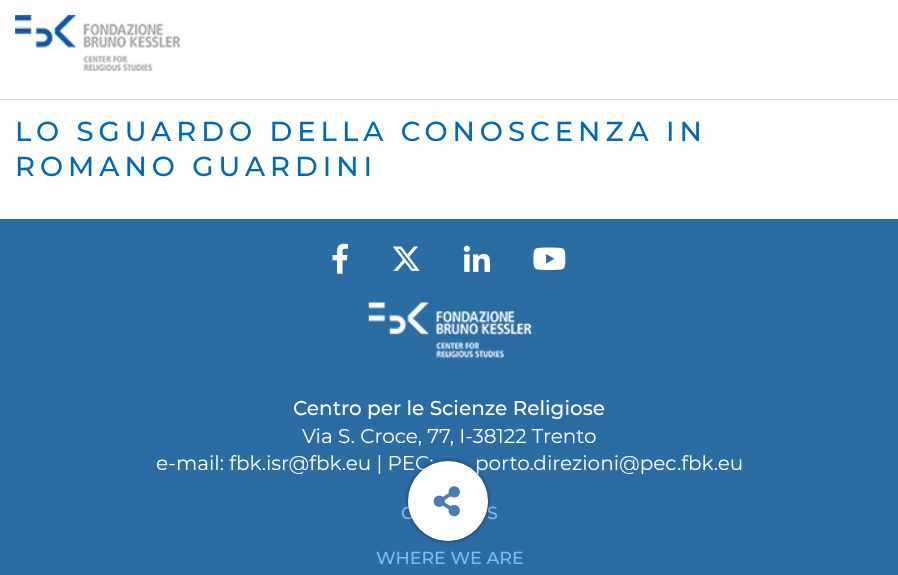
<svg xmlns="http://www.w3.org/2000/svg" width="898" height="575">
	<rect width="100%" height="100%" fill="#FFFFFF" />
	<rect x="0" y="99" width="898" height="1" fill="#DEDEDE" />
	<image x="15" y="15" width="165" height="56" href="assets/img1.png" />
	<g font-family="Montserrat" font-size="27.5" font-weight="500" letter-spacing="5" fill="#0068B4">
		<text x="15" y="141">LO SGUARDO DELLA CONOSCENZA IN</text>
		<text x="15" y="176">ROMANO GUARDINI</text>
	</g>
	<rect x="0" y="219" width="898" height="356" fill="#2B6CA3" />
	<image x="332" y="243" width="16" height="31" href="assets/img2.png" />
	<image x="392" y="246" width="28" height="25" href="assets/img3.png" />
	<image x="463" y="245" width="27" height="27" href="assets/img4.png" />
	<image x="533" y="247" width="33" height="23" href="assets/img5.png" />
	<image x="368" y="302" width="164" height="56" href="assets/img6.png" />
	<text x="293" y="415" font-family="Montserrat" font-size="20" font-weight="500" fill="#FFFFFF">Centro per le Scienze Religiose</text>
	<g font-family="Montserrat" font-size="20" fill="#FFFFFF">
		<text x="302" y="443">Via S. Croce, 77, I-38122 Trento</text>
		<text x="156" y="470">e-mail: fbk.isr@fbk.eu | PEC:</text>
		<text x="475" y="470">porto.direzioni@pec.fbk.eu</text>
	</g>
	<g font-family="Montserrat" font-size="17.5" font-weight="500" fill="#86B8F5">
		<text x="401" y="519">C</text>
		<text x="487" y="519">S</text>
		<text x="376" y="564">WHERE WE ARE</text>
	</g>
	<rect x="408" y="461" width="80" height="80" rx="40" fill="#000000" fill-opacity="0.5" filter="blur(2px)" />
	<circle cx="448" cy="501" r="40" fill="#FFFFFF" />
	<image x="433" y="486" width="27" height="31" href="assets/img7.png" />
</svg>
